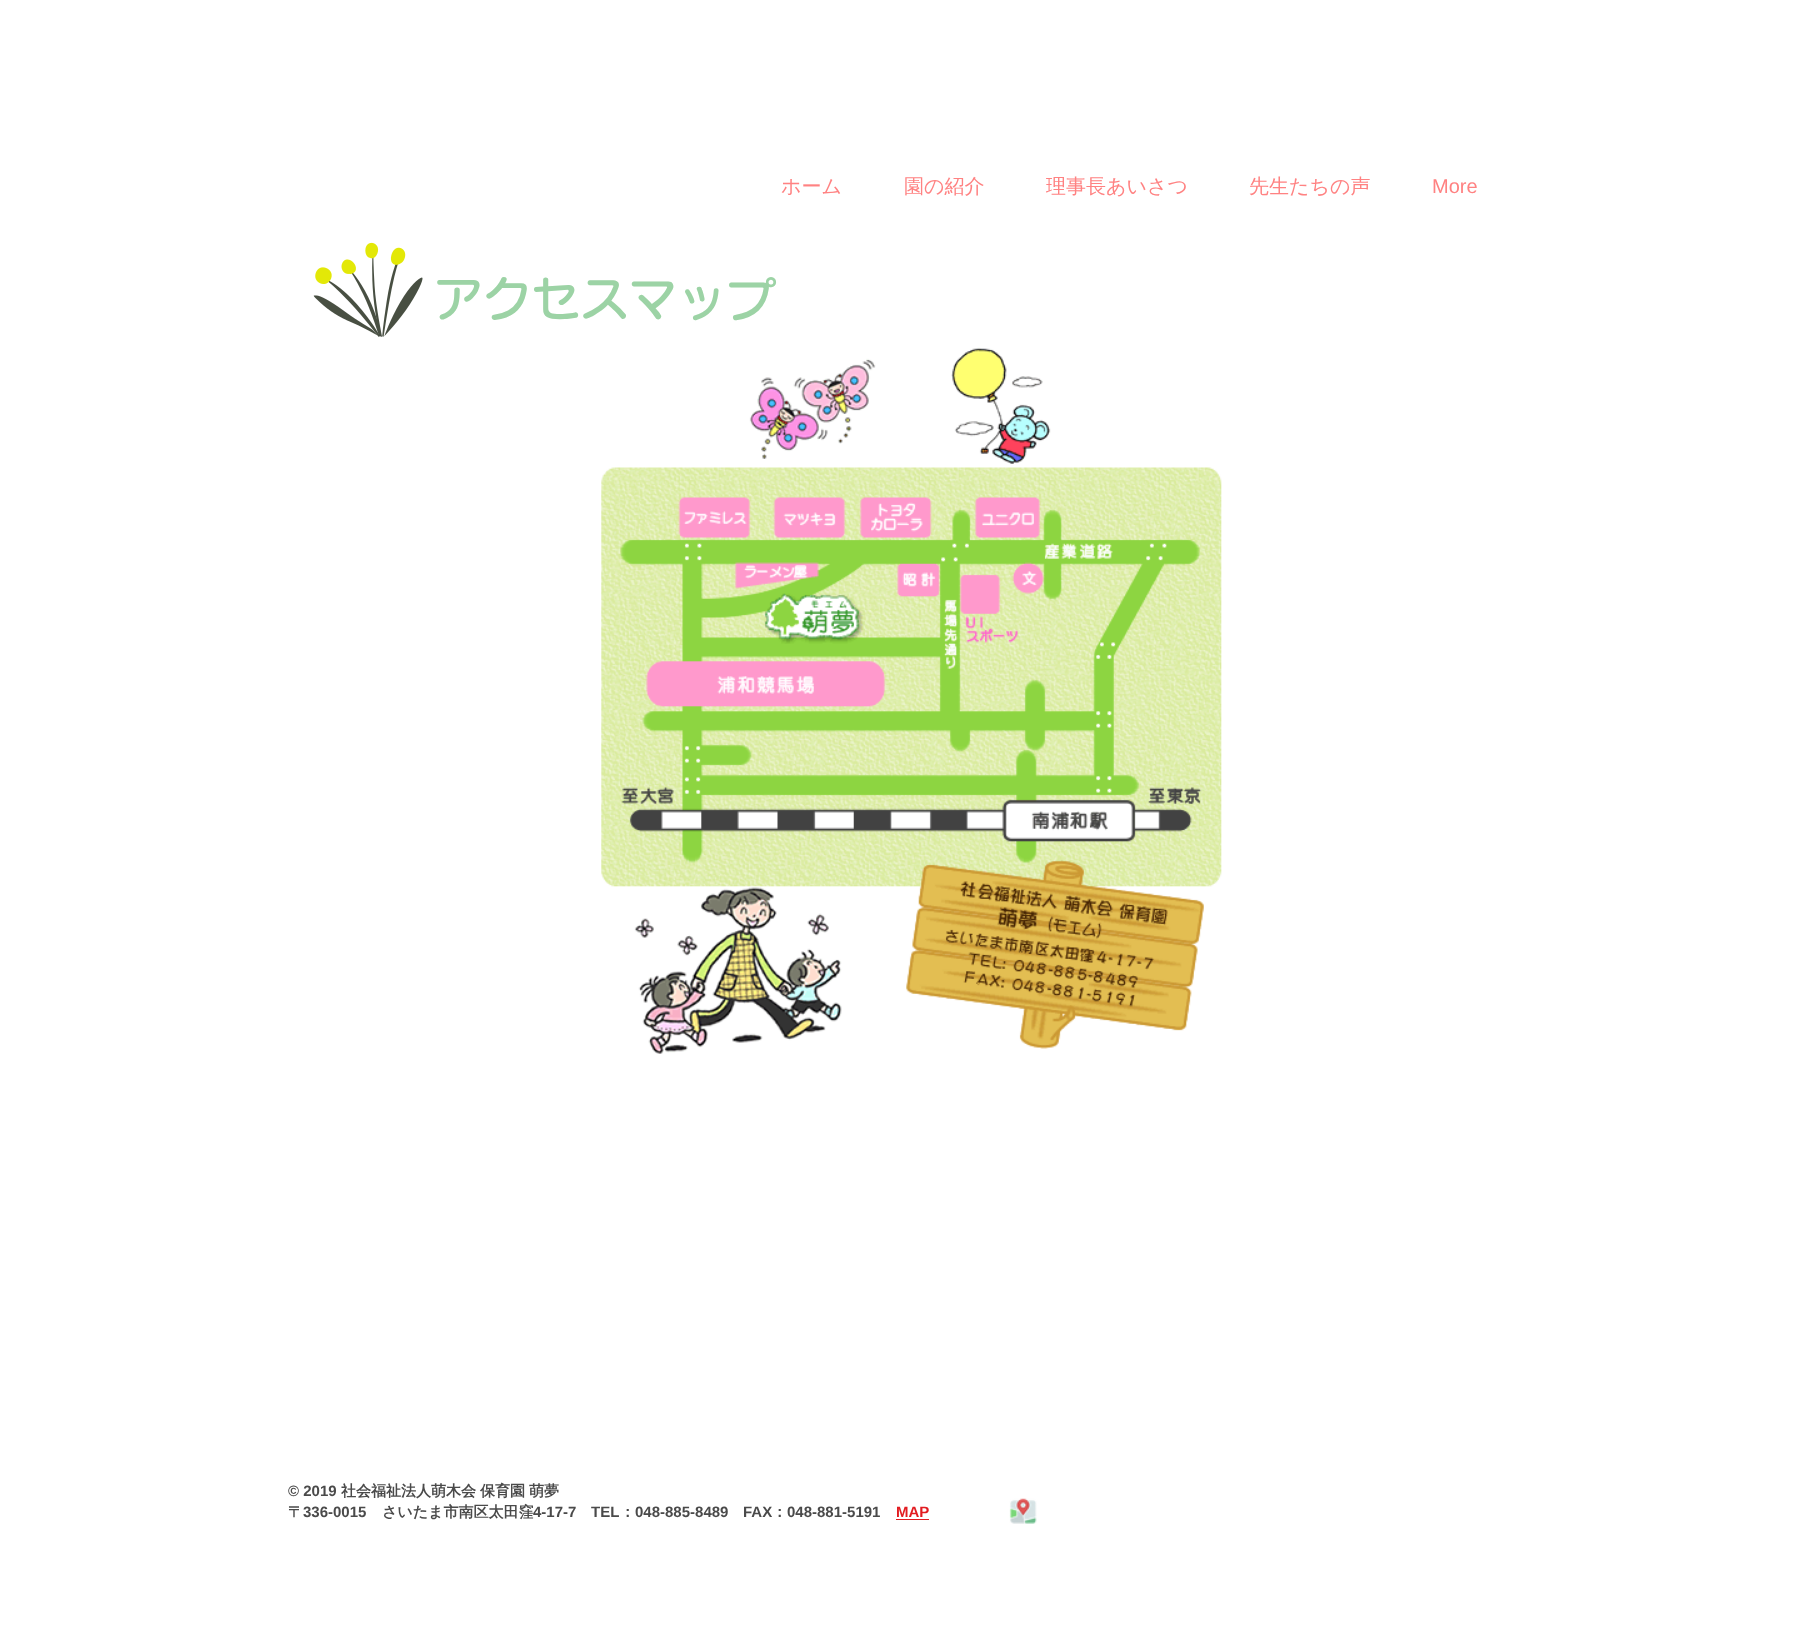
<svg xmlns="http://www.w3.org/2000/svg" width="1801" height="1646">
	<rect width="100%" height="100%" fill="#FFFFFF" />
	<g font-family="WenQuanYi Zen Hei" font-size="20" font-weight="500" fill="#FF8282">
		<text x="781" y="193">ホーム</text>
		<text x="904" y="193">園の紹介</text>
		<text x="1046" y="193">理事長あいさつ</text>
		<text x="1249" y="193">先生たちの声</text>
	</g>
	<text x="1432" y="193" font-family="Liberation Sans" font-size="20" fill="#FF8282">More</text>
	<image x="313" y="242" width="110" height="95" href="assets/img1.png" />
	<text x="434" y="317" font-family="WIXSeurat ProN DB" font-size="48.75" font-weight="600" fill="#9CD3A5">アクセスマップ</text>
	<image x="601" y="347" width="621" height="707" href="assets/img2.png" />
	<text x="288" y="1496" font-family="Liberation Sans" font-size="15" font-weight="700" fill="#4A4A4A">© 2019</text>
	<g font-family="WenQuanYi Zen Hei" font-size="15" font-weight="700" fill="#4A4A4A">
		<text x="341" y="1496">社会福祉法人萌木会</text>
		<text x="480" y="1496">保育園</text>
		<text x="529" y="1496">萌夢</text>
		<text x="288" y="1517">〒</text>
	</g>
	<text x="303" y="1517" font-family="Liberation Sans" font-size="15" font-weight="700" fill="#4A4A4A">336-0015</text>
	<text x="382" y="1517" font-family="WenQuanYi Zen Hei" font-size="15" font-weight="700" fill="#4A4A4A">さいたま市南区太田窪</text>
	<g font-family="Liberation Sans" font-size="15" font-weight="700" fill="#4A4A4A">
		<text x="533" y="1517">4-17-7</text>
		<text x="591" y="1517">TEL</text>
	</g>
	<text x="620" y="1517" font-family="WenQuanYi Zen Hei" font-size="15" font-weight="700" fill="#4A4A4A">：</text>
	<g font-family="Liberation Sans" font-size="15" font-weight="700" fill="#4A4A4A">
		<text x="635" y="1517">048-885-8489</text>
		<text x="743" y="1517">FAX</text>
	</g>
	<text x="772" y="1517" font-family="WenQuanYi Zen Hei" font-size="15" font-weight="700" fill="#4A4A4A">：</text>
	<text x="787" y="1517" font-family="Liberation Sans" font-size="15" font-weight="700" fill="#4A4A4A">048-881-5191</text>
	<text x="896" y="1517" font-family="Liberation Sans" font-size="15" font-weight="700" fill="#E21C21">MAP</text>
	<rect x="896" y="1519" width="33" height="1" fill="#E21C21" />
	<image x="1009" y="1498" width="28" height="26" href="assets/img3.png" />
</svg>
